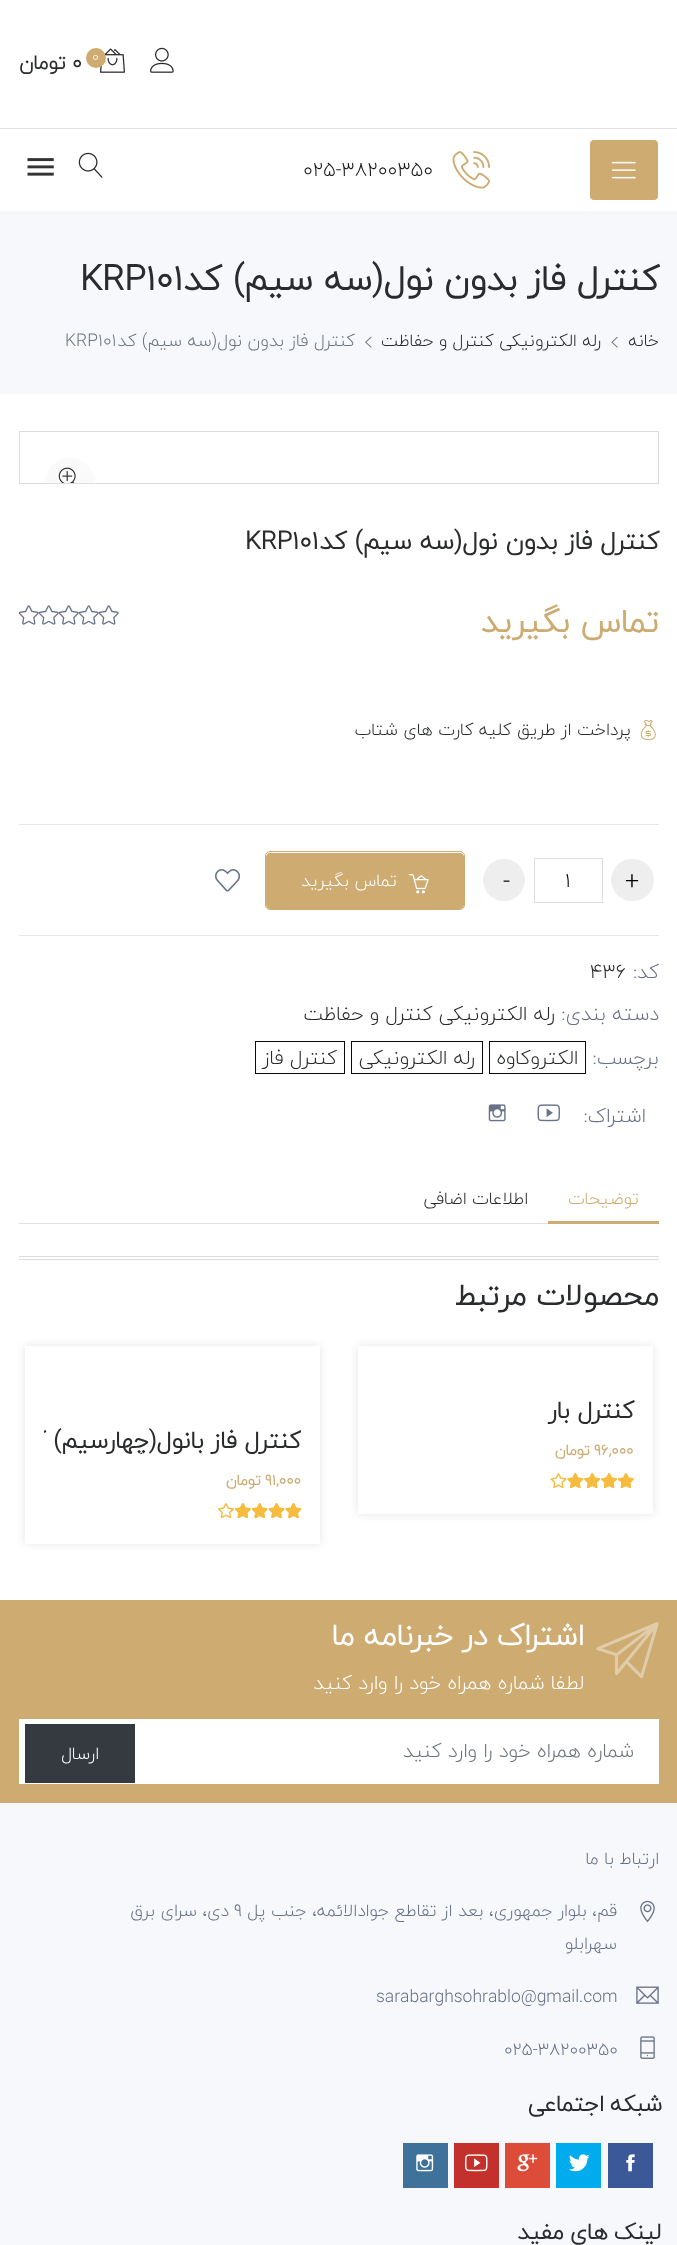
<svg xmlns="http://www.w3.org/2000/svg" width="677" height="2245">
	<defs>
		<clipPath id="clip1"><rect x="44" y="1425" width="257" height="29" /></clipPath>
	</defs>
	<rect width="100%" height="100%" fill="#FFFFFF" />
	<image x="150" y="47" width="24" height="26" href="assets/img1.png" />
	<image x="100" y="48" width="25" height="25" href="assets/img2.png" />
	<circle cx="96" cy="58" r="10" fill="#CDAB71" />
	<text x="92" y="61" font-family="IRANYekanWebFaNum" font-size="14" font-weight="300" fill="#FFFFFF">0</text>
	<text x="72" y="69" font-family="IRANYekanWebFaNum" font-size="20" font-weight="700" fill="#292B2C">0</text>
	<text x="66" y="69" font-family="IRANYekanWebFaNum" font-size="20" font-weight="700" direction="rtl" fill="#292B2C">تومان</text>
	<rect x="0" y="128" width="677" height="1" fill="#DEE2E6" />
	<rect x="589.5" y="139.5" width="69" height="61" rx="4.5" fill="#CDAB71" stroke="#FFFFFF" />
	<image x="611" y="161" width="25" height="18" href="assets/img3.png" />
	<image x="452" y="151" width="38" height="38" href="assets/img4.png" />
	<text x="303" y="176" font-family="IRANYekanWebFaNum" font-size="20" font-weight="300" fill="#16181B">025-38200350</text>
	<image x="78" y="152" width="25" height="26" href="assets/img5.png" />
	<image x="27" y="158" width="27" height="18" href="assets/img6.png" />
	<rect x="0" y="211" width="677" height="183" fill="#F7F8FB" />
	<text x="659" y="290" font-family="IRANYekanWebFaNum" font-size="35" font-weight="700" direction="rtl" fill="#292B2C">کنترل فاز بدون نول(سه سیم) کد</text>
	<text x="80" y="290" font-family="IRANYekanWebFaNum" font-size="35" font-weight="700" fill="#292B2C">KRP101</text>
	<text x="659" y="346" font-family="IRANYekanWebFaNum" font-size="17.5" font-weight="300" direction="rtl" fill="#292B2C">خانه</text>
	<image x="611" y="336" width="7" height="12" href="assets/img7.png" />
	<text x="601" y="346" font-family="IRANYekanWebFaNum" font-size="17.5" font-weight="300" direction="rtl" fill="#292B2C">رله الکترونیکی کنترل و حفاظت</text>
	<image x="365" y="336" width="7" height="12" href="assets/img8.png" />
	<text x="355" y="346" font-family="IRANYekanWebFaNum" font-size="17.5" font-weight="300" direction="rtl" fill="#6C757D">کنترل فاز بدون نول(سه سیم) کد</text>
	<text x="65" y="346" font-family="IRANYekanWebFaNum" font-size="17.5" font-weight="300" fill="#6C757D">KRP101</text>
	<rect x="19.5" y="431.5" width="639" height="52" fill="none" stroke="#DDDDDD" />
	<path d="M70 458C84 458 95 469 95 483H45C45 469 56 458 70 458Z" fill="#FAFAFA" />
	<image x="58" y="467" width="18" height="16" href="assets/img9.png" />
	<text x="659" y="549" font-family="IRANYekanWebFaNum" font-size="25" font-weight="700" direction="rtl" fill="#292B2C">کنترل فاز بدون نول(سه سیم) کد</text>
	<text x="245" y="549" font-family="IRANYekanWebFaNum" font-size="25" font-weight="700" fill="#292B2C">KRP101</text>
	<text x="659" y="632" font-family="IRANYekanWebFaNum" font-size="32.5" font-weight="700" direction="rtl" fill="#CDAB71">تماس بگیرید</text>
	<image x="98" y="605" width="21" height="20" href="assets/img10.png" />
	<image x="78" y="605" width="21" height="20" href="assets/img11.png" />
	<image x="58" y="605" width="21" height="20" href="assets/img11.png" />
	<image x="38" y="605" width="21" height="20" href="assets/img11.png" />
	<image x="18" y="605" width="21" height="20" href="assets/img11.png" />
	<image x="640" y="720" width="16" height="20" href="assets/img12.png" />
	<text x="631" y="735" font-family="IRANYekanWebFaNum" font-size="17.5" font-weight="300" direction="rtl" fill="#292B2C">پرداخت از طریق کلیه کارت های شتاب</text>
	<rect x="19" y="824" width="640" height="1" fill="#E6E6E6" />
	<rect x="611" y="859" width="43" height="42" rx="21" fill="#EEEEEE" />
	<text x="625" y="889" font-family="IRANYekanWebFaNum" font-size="25" font-weight="300" fill="#000000">+</text>
	<rect x="534.5" y="858.5" width="68" height="44" fill="none" stroke="#DDDDDD" />
	<text x="565" y="887" font-family="IRANYekanWebFaNum" font-size="20" font-weight="300" fill="#000000">1</text>
	<circle cx="504" cy="880" r="21" fill="#EEEEEE" />
	<text x="503" y="889" font-family="IRANYekanWebFaNum" font-size="25" font-weight="300" fill="#000000">-</text>
	<rect x="265.5" y="851.5" width="199" height="58" rx="4.5" fill="none" stroke="#CDAB71" />
	<path d="M270 853H366V909H270C268 909 266 907 266 905V857C266 855 268 853 270 853Z" fill="#CDAB71" />
	<path d="M363 853H460C462 853 464 855 464 857V905C464 907 462 909 460 909H363Z" fill="#CDAB71" />
	<image x="408" y="874" width="21" height="20" href="assets/img13.png" />
	<text x="397" y="886" font-family="IRANYekanWebFaNum" font-size="17.5" font-weight="300" direction="rtl" fill="#FFFFFF">تماس بگیرید</text>
	<image x="215" y="869" width="25" height="23" href="assets/img14.png" />
	<rect x="19" y="935" width="640" height="1" fill="#E6E6E6" />
	<text x="659" y="978" font-family="IRANYekanWebFaNum" font-size="20" font-weight="300" direction="rtl" fill="#687188">کد:</text>
	<text x="590" y="978" font-family="IRANYekanWebFaNum" font-size="20" font-weight="300" fill="#292B2C">436</text>
	<text x="659" y="1020" font-family="IRANYekanWebFaNum" font-size="20" font-weight="300" direction="rtl" fill="#687188">دسته بندی:</text>
	<text x="555" y="1020" font-family="IRANYekanWebFaNum" font-size="20" font-weight="300" direction="rtl" fill="#292B2C">رله الکترونیکی کنترل و حفاظت</text>
	<text x="659" y="1064" font-family="IRANYekanWebFaNum" font-size="20" font-weight="300" direction="rtl" fill="#687188">برچسب:</text>
	<rect x="489.5" y="1041.5" width="96" height="32" fill="none" stroke="#0A0A0A" />
	<text x="578" y="1064" font-family="IRANYekanWebFaNum" font-size="20" font-weight="300" direction="rtl" fill="#292B2C">الکتروکاوه</text>
	<rect x="351.5" y="1041.5" width="131" height="32" fill="none" stroke="#0A0A0A" />
	<text x="475" y="1064" font-family="IRANYekanWebFaNum" font-size="20" font-weight="300" direction="rtl" fill="#292B2C">رله الکترونیکی</text>
	<rect x="255.5" y="1041.5" width="89" height="32" fill="none" stroke="#0A0A0A" />
	<text x="337" y="1064" font-family="IRANYekanWebFaNum" font-size="20" font-weight="300" direction="rtl" fill="#292B2C">کنترل فاز</text>
	<text x="646" y="1122" font-family="IRANYekanWebFaNum" font-size="20" font-weight="300" direction="rtl" fill="#687188">اشتراک:</text>
	<image x="537" y="1104" width="23" height="18" href="assets/img15.png" />
	<image x="488" y="1104" width="18" height="18" href="assets/img16.png" />
	<rect x="19" y="1223" width="529" height="1" fill="#DEE2E6" />
	<rect x="548" y="1221" width="111" height="3" fill="#CDAB71" />
	<text x="639" y="1204" font-family="IRANYekanWebFaNum" font-size="17.5" font-weight="300" direction="rtl" fill="#CDAB71">توضیحات</text>
	<text x="528" y="1204" font-family="IRANYekanWebFaNum" font-size="17.5" font-weight="300" direction="rtl" fill="#292B2C">اطلاعات اضافی</text>
	<rect x="19" y="1256" width="640" height="1" fill="#DDDDDD" />
	<rect x="19" y="1259" width="640" height="1" fill="#DDDDDD" />
	<text x="659" y="1305" font-family="IRANYekanWebFaNum" font-size="30" font-weight="700" direction="rtl" fill="#292B2C">محصولات مرتبط</text>
	<rect x="358" y="1346" width="295" height="168" fill="#000000" fill-opacity="0.1" filter="blur(4.5px)" />
	<rect x="358" y="1346" width="295" height="168" fill="#FFFFFF" />
	<text x="634" y="1418" font-family="IRANYekanWebFaNum" font-size="24" font-weight="700" direction="rtl" fill="#292B2C">کنترل بار</text>
	<text x="594" y="1455" font-family="IRANYekanWebFaNum" font-size="15" font-weight="700" fill="#CDAB71">96,000</text>
	<text x="590" y="1455" font-family="IRANYekanWebFaNum" font-size="15" font-weight="700" direction="rtl" fill="#CDAB71">تومان</text>
	<image x="550" y="1473" width="84" height="16" href="assets/img17.png" />
	<image x="564" y="1473" width="70" height="16" href="assets/img18.png" />
	<rect x="25" y="1346" width="295" height="198" fill="#000000" fill-opacity="0.1" filter="blur(4.5px)" />
	<rect x="25" y="1346" width="295" height="198" fill="#FFFFFF" />
	<g clip-path="url(#clip1)">
		<text x="301" y="1448" font-family="IRANYekanWebFaNum" font-size="24" font-weight="700" direction="rtl" fill="#292B2C">کنترل فاز بانول(چهارسیم) کد</text>
	</g>
	<text x="265" y="1485" font-family="IRANYekanWebFaNum" font-size="15" font-weight="700" fill="#CDAB71">91,000</text>
	<text x="261" y="1485" font-family="IRANYekanWebFaNum" font-size="15" font-weight="700" direction="rtl" fill="#CDAB71">تومان</text>
	<image x="218" y="1503" width="83" height="16" href="assets/img19.png" />
	<image x="231" y="1503" width="70" height="16" href="assets/img20.png" />
	<rect x="0" y="1600" width="677" height="203" fill="#CDAB71" />
	<image x="596" y="1622" width="63" height="57" href="assets/img21.png" />
	<text x="584" y="1645" font-family="IRANYekanWebFaNum" font-size="30" font-weight="700" direction="rtl" fill="#FFFFFF">اشتراک در خبرنامه ما</text>
	<text x="584" y="1689" font-family="IRANYekanWebFaNum" font-size="20" font-weight="300" direction="rtl" fill="#FFFFFF">لطفا شماره همراه خود را وارد کنید</text>
	<rect x="19" y="1719" width="640" height="65" fill="#FFFFFF" />
	<text x="634" y="1757" font-family="IRANYekanWebFaNum" font-size="20" font-weight="300" direction="rtl" fill="#6C757D">شماره همراه خود را وارد کنید</text>
	<rect x="25" y="1724" width="110" height="59" fill="#343A40" />
	<text x="99" y="1759" font-family="IRANYekanWebFaNum" font-size="17.5" font-weight="300" direction="rtl" fill="#FFFFFF">ارسال</text>
	<rect x="0" y="1803" width="677" height="442" fill="#F7F8FB" />
	<text x="659" y="1864" font-family="IRANYekanWebFaNum" font-size="17.5" font-weight="300" direction="rtl" fill="#687188">ارتباط با ما</text>
	<image x="640" y="1900" width="15" height="23" href="assets/img22.png" />
	<text x="617" y="1916" font-family="IRANYekanWebFaNum" font-size="17.5" font-weight="300" direction="rtl" fill="#687188">قم، بلوار جمهوری، بعد از تقاطع جوادالائمه، جنب پل</text>
	<text x="234" y="1916" font-family="IRANYekanWebFaNum" font-size="17.5" font-weight="300" fill="#687188">9</text>
	<g font-family="IRANYekanWebFaNum" font-size="17.5" font-weight="300" direction="rtl" fill="#687188">
		<text x="229" y="1916">دی، سرای برق</text>
		<text x="617" y="1949">سهرابلو</text>
	</g>
	<image x="636" y="1986" width="23" height="18" href="assets/img23.png" />
	<text x="376" y="2002" font-family="IRANYekanWebFaNum" font-size="17.5" font-weight="300" fill="#687188">sarabarghsohrablo@gmail.com</text>
	<image x="640" y="2036" width="15" height="23" href="assets/img24.png" />
	<text x="504" y="2055" font-family="IRANYekanWebFaNum" font-size="17.5" font-weight="300" fill="#687188">025-38200350</text>
	<text x="662" y="2111" word-spacing="-1" font-family="IRANYekanWebFaNum" font-size="22.5" font-weight="700" letter-spacing="0.4" direction="rtl" fill="#292B2C">شبکه اجتماعی</text>
	<rect x="608" y="2143" width="45" height="45" fill="#3B5998" />
	<image x="626" y="2154" width="9" height="18" href="assets/img25.png" />
	<rect x="556" y="2143" width="45" height="45" fill="#00ACEE" />
	<image x="569" y="2154" width="21" height="18" href="assets/img26.png" />
	<rect x="505" y="2143" width="45" height="45" fill="#DD4B39" />
	<image x="517" y="2154" width="21" height="18" href="assets/img27.png" />
	<rect x="454" y="2143" width="45" height="45" fill="#C4302B" />
	<image x="465" y="2154" width="23" height="18" href="assets/img28.png" />
	<rect x="403" y="2143" width="45" height="45" fill="#3F729B" />
	<image x="416" y="2154" width="18" height="18" href="assets/img29.png" />
	<text x="661" y="2239" word-spacing="-1" font-family="IRANYekanWebFaNum" font-size="22.5" font-weight="700" letter-spacing="0.4" direction="rtl" fill="#292B2C">لینک های مفید</text>
</svg>
